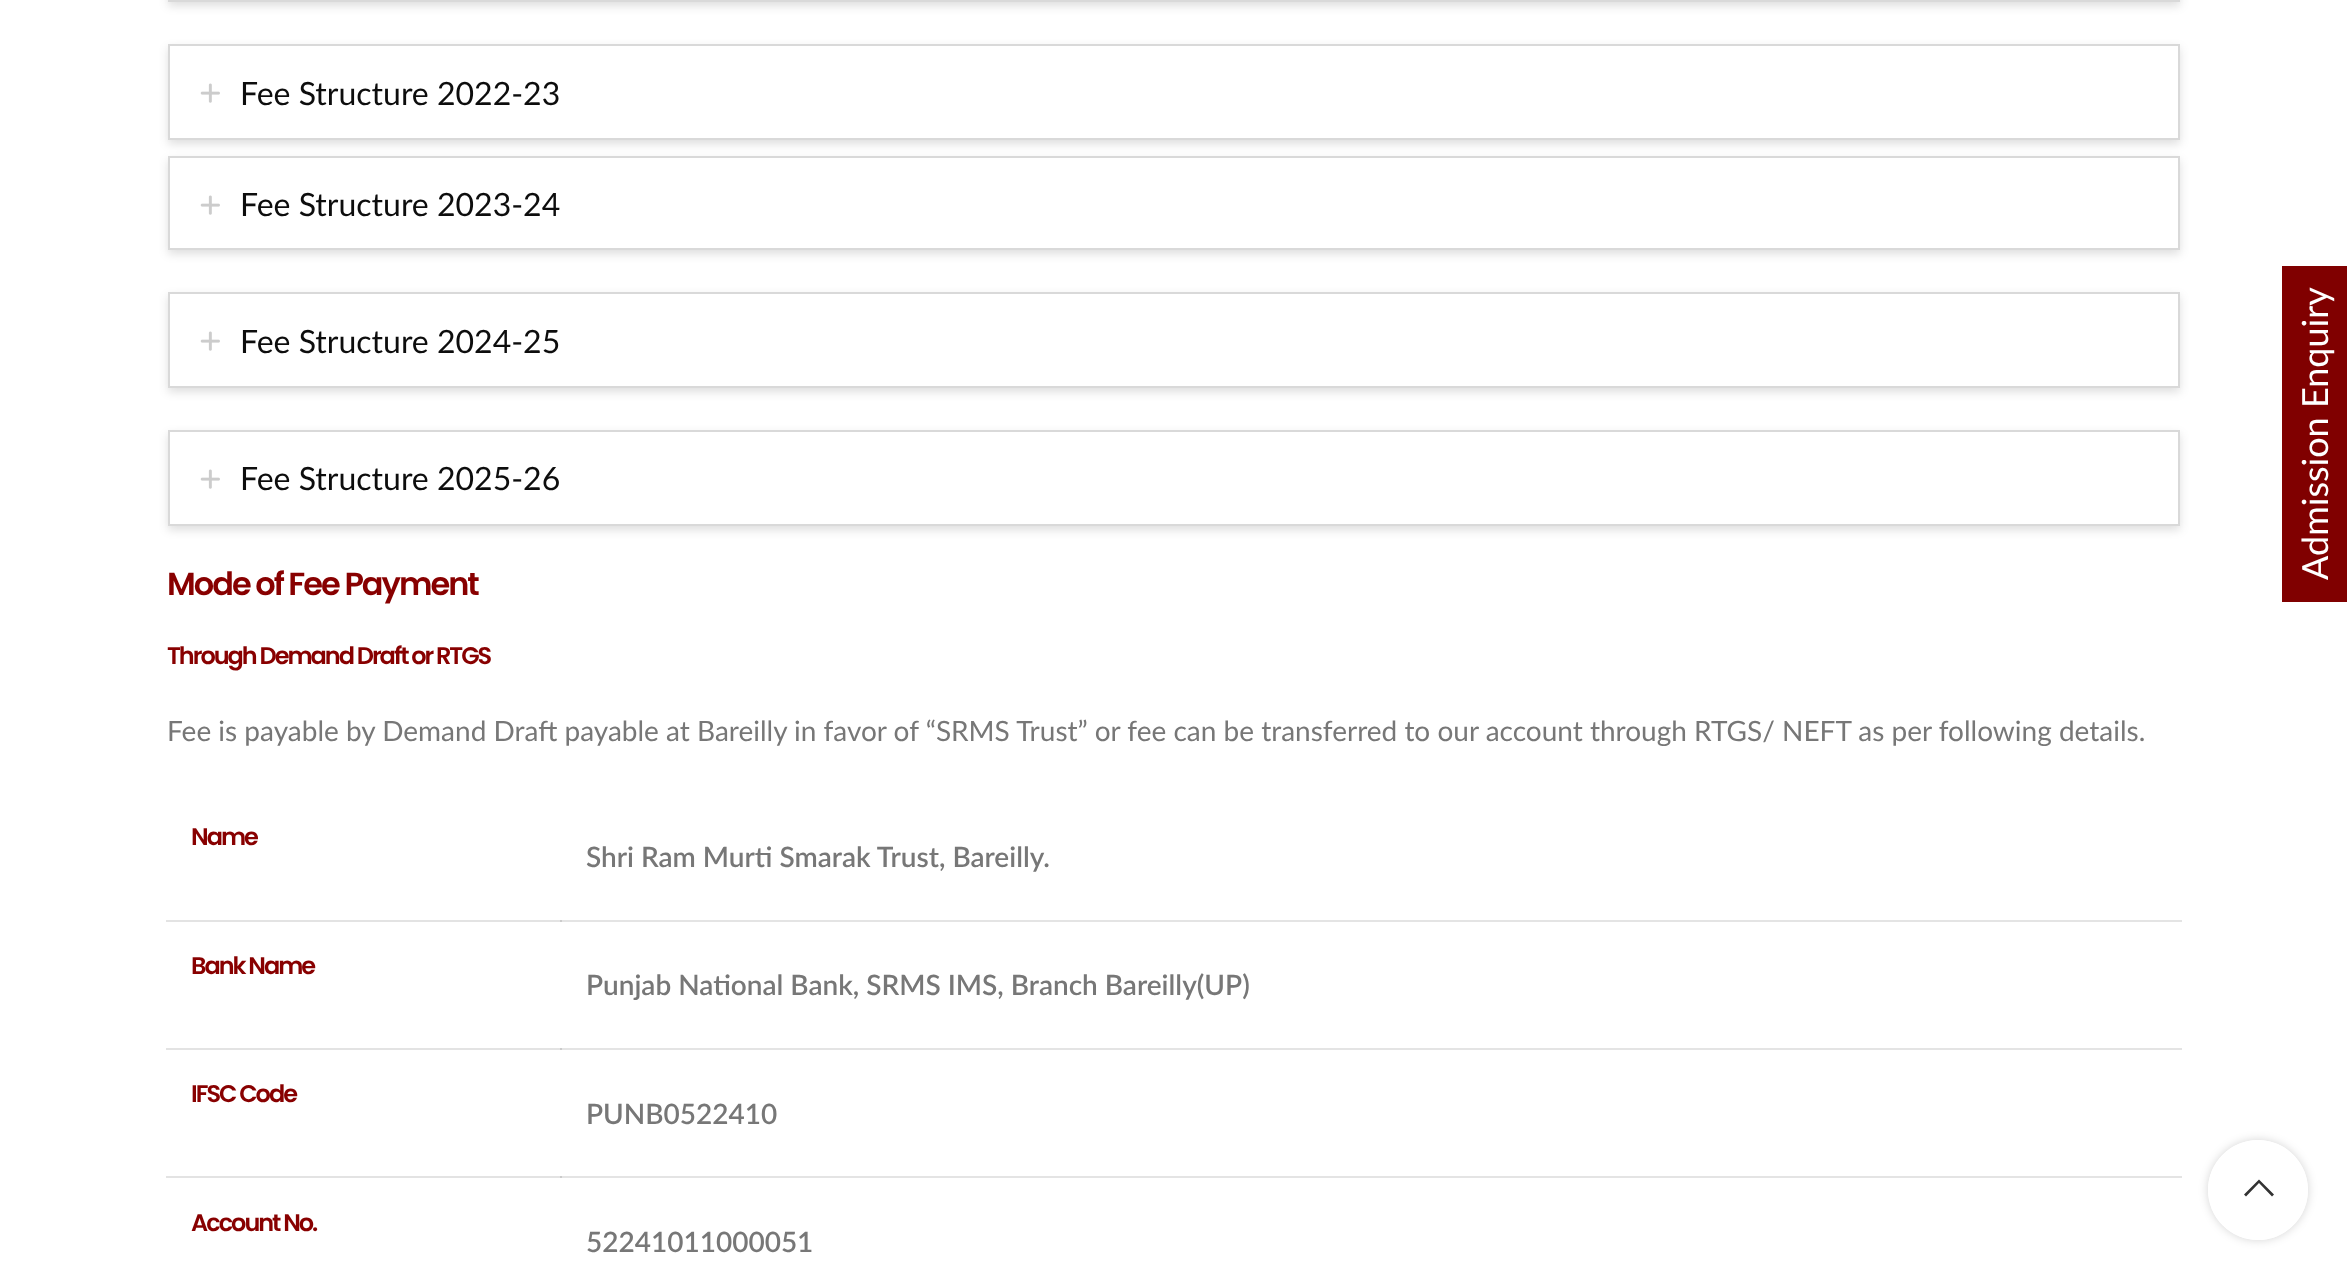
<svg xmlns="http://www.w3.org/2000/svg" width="2347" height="1279">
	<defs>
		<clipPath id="clip1"><path d="M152 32H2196V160H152ZM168 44H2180V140H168Z" clip-rule="evenodd" /></clipPath>
		<clipPath id="clip2"><path d="M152 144H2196V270H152ZM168 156H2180V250H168Z" clip-rule="evenodd" /></clipPath>
		<clipPath id="clip3"><path d="M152 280H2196V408H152ZM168 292H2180V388H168Z" clip-rule="evenodd" /></clipPath>
		<clipPath id="clip4"><path d="M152 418H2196V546H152ZM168 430H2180V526H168Z" clip-rule="evenodd" /></clipPath>
		<clipPath id="clip5"><path d="M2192 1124H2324V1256H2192ZM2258 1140C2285.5 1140 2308 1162.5 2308 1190C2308 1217.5 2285.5 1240 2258 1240C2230.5 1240 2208 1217.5 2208 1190C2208 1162.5 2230.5 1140 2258 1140Z" clip-rule="evenodd" /></clipPath>
	</defs>
	<rect width="100%" height="100%" fill="#FFFFFF" />
	<rect x="166" y="920" width="396" height="2" fill="#E3E3E3" />
	<rect x="166" y="1048" width="396" height="2" fill="#E3E3E3" />
	<rect x="166" y="1176" width="396" height="2" fill="#E3E3E3" />
	<rect x="168" y="-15" width="2012" height="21" fill="#000000" fill-opacity="0.13" filter="blur(5px)" />
	<rect x="169" y="-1" width="2010" height="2" fill="none" stroke="#D9D9D9" stroke-width="2" />
	<g clip-path="url(#clip1)">
		<rect x="168" y="48" width="2012" height="96" fill="#000000" fill-opacity="0.13" filter="blur(5px)" />
	</g>
	<rect x="169" y="45" width="2010" height="94" fill="none" stroke="#D9D9D9" stroke-width="2" />
	<image x="200" y="83" width="20" height="20" href="assets/img1.png" />
	<text x="240" y="105" font-family="Lato" font-size="32" fill="#0D0D0D">Fee Structure 2022-23</text>
	<g clip-path="url(#clip2)">
		<rect x="168" y="160" width="2012" height="94" fill="#000000" fill-opacity="0.13" filter="blur(5px)" />
	</g>
	<rect x="169" y="157" width="2010" height="92" fill="none" stroke="#D9D9D9" stroke-width="2" />
	<image x="200" y="195" width="20" height="20" href="assets/img1.png" />
	<text x="240" y="216" font-family="Lato" font-size="32" fill="#0D0D0D">Fee Structure 2023-24</text>
	<g clip-path="url(#clip3)">
		<rect x="168" y="296" width="2012" height="96" fill="#000000" fill-opacity="0.13" filter="blur(5px)" />
	</g>
	<rect x="169" y="293" width="2010" height="94" fill="none" stroke="#D9D9D9" stroke-width="2" />
	<image x="200" y="331" width="20" height="20" href="assets/img1.png" />
	<text x="240" y="353" font-family="Lato" font-size="32" fill="#0D0D0D">Fee Structure 2024-25</text>
	<g clip-path="url(#clip4)">
		<rect x="168" y="434" width="2012" height="96" fill="#000000" fill-opacity="0.13" filter="blur(5px)" />
	</g>
	<rect x="169" y="431" width="2010" height="94" fill="none" stroke="#D9D9D9" stroke-width="2" />
	<image x="200" y="469" width="20" height="20" href="assets/img1.png" />
	<text x="240" y="490" font-family="Lato" font-size="32" fill="#0D0D0D">Fee Structure 2025-26</text>
	<text x="167" y="595" font-family="Poppins" font-size="32" font-weight="600" letter-spacing="-2" fill="#880000">Mode of Fee Payment</text>
	<text x="167" y="664" font-family="Poppins" font-size="24" font-weight="600" letter-spacing="-2" fill="#880000">Through Demand Draft or RTGS</text>
	<text x="167" y="741" font-family="Lato" font-size="28" fill="#777777">Fee is payable by Demand Draft payable at Bareilly in favor of “SRMS Trust” or fee can be transferred to our account through RTGS/ NEFT as per following details.</text>
	<text x="191" y="845" font-family="Poppins" font-size="24" font-weight="600" letter-spacing="-2" fill="#880000">Name</text>
	<rect x="560" y="920" width="1622" height="2" fill="#E4E4E4" />
	<rect x="560" y="920" width="2" height="2" fill="#CBCBCB" />
	<text x="586" y="867" font-family="Lato" font-size="28" font-weight="600" fill="#777777">Shri Ram Murti Smarak Trust, Bareilly.</text>
	<text x="191" y="974" font-family="Poppins" font-size="24" font-weight="600" letter-spacing="-2" fill="#880000">Bank Name</text>
	<rect x="560" y="1048" width="1622" height="2" fill="#E4E4E4" />
	<rect x="560" y="1048" width="2" height="2" fill="#CBCBCB" />
	<text x="586" y="995" font-family="Lato" font-size="28" font-weight="600" fill="#777777">Punjab National Bank, SRMS IMS, Branch Bareilly(UP)</text>
	<text x="191" y="1102" font-family="Poppins" font-size="24" font-weight="600" letter-spacing="-2" fill="#880000">IFSC Code</text>
	<rect x="560" y="1176" width="1622" height="2" fill="#E4E4E4" />
	<rect x="560" y="1176" width="2" height="2" fill="#CBCBCB" />
	<text x="586" y="1124" font-family="Lato" font-size="28" font-weight="600" fill="#777777">PUNB0522410</text>
	<text x="191" y="1231" font-family="Poppins" font-size="24" font-weight="600" letter-spacing="-2" fill="#880000">Account No.</text>
	<text x="586" y="1252" font-family="Lato" font-size="28" font-weight="600" fill="#777777">52241011000051</text>
	<rect x="2282" y="266" width="65" height="336" fill="#800000" />
	<text x="2328" y="580" transform="rotate(-90 2328 580)" font-family="Lato" font-size="36" fill="#FFFFFF">Admission Enquiry</text>
	<g clip-path="url(#clip5)">
		<rect x="2208" y="1140" width="100" height="100" rx="50" fill="#000000" fill-opacity="0.17" filter="blur(5px)" />
	</g>
	<circle cx="2258" cy="1190" r="50" fill="#FFFFFF" fill-opacity="0.9" />
	<path d="M2272 1196.5L2274 1194.5L2259 1179.5L2244 1194.5L2246 1196.5L2259 1183Z" fill="#333333" />
</svg>
